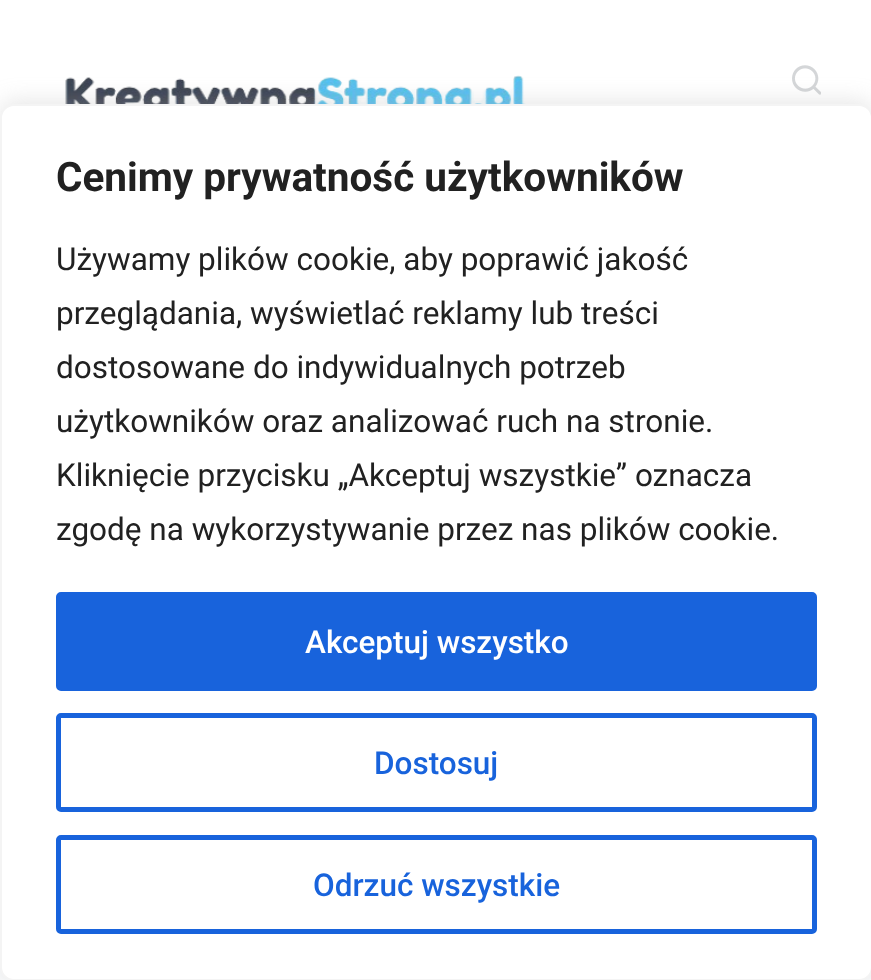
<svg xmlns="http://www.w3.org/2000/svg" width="871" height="980">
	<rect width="100%" height="100%" fill="#FAFBFC" />
	<rect x="0" y="0" width="871" height="118" fill="#FFFFFF" />
	<image x="65" y="75" width="461" height="29" href="assets/img1.png" />
	<image x="792" y="65" width="29" height="30" href="assets/img2.png" />
	<rect x="0" y="101" width="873" height="878" rx="14" fill="#ACABAB" fill-opacity="0.3" filter="blur(11px)" />
	<rect x="1" y="105" width="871" height="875" rx="13" fill="#FFFFFF" stroke="#F4F4F4" stroke-width="2" />
	<text x="56" y="191" font-family="Roboto" font-size="40.5" font-weight="700" fill="#212121">Cenimy prywatność użytkowników</text>
	<g font-family="Roboto" font-size="31.5" fill="#212121">
		<text x="56" y="270">Używamy plików cookie, aby poprawić jakość</text>
		<text x="56" y="324">przeglądania, wyświetlać reklamy lub treści</text>
		<text x="56" y="378">dostosowane do indywidualnych potrzeb</text>
		<text x="56" y="432">użytkowników oraz analizować ruch na stronie.</text>
		<text x="56" y="486">Kliknięcie przycisku „Akceptuj wszystkie” oznacza</text>
		<text x="56" y="540">zgodę na wykorzystywanie przez nas plików cookie.</text>
	</g>
	<rect x="58.5" y="594.5" width="756" height="94" rx="2.5" fill="#1863DC" stroke="#1863DC" stroke-width="5" />
	<text x="305" y="653" font-family="Roboto" font-size="31.5" font-weight="500" fill="#FFFFFF">Akceptuj wszystko</text>
	<rect x="58.5" y="715.5" width="756" height="94" rx="2.5" fill="none" stroke="#1863DC" stroke-width="5" />
	<text x="374" y="774" font-family="Roboto" font-size="31.5" font-weight="500" fill="#1863DC">Dostosuj</text>
	<rect x="58.5" y="837.5" width="756" height="94" rx="2.5" fill="none" stroke="#1863DC" stroke-width="5" />
	<text x="313" y="896" font-family="Roboto" font-size="31.5" font-weight="500" fill="#1863DC">Odrzuć wszystkie</text>
</svg>
